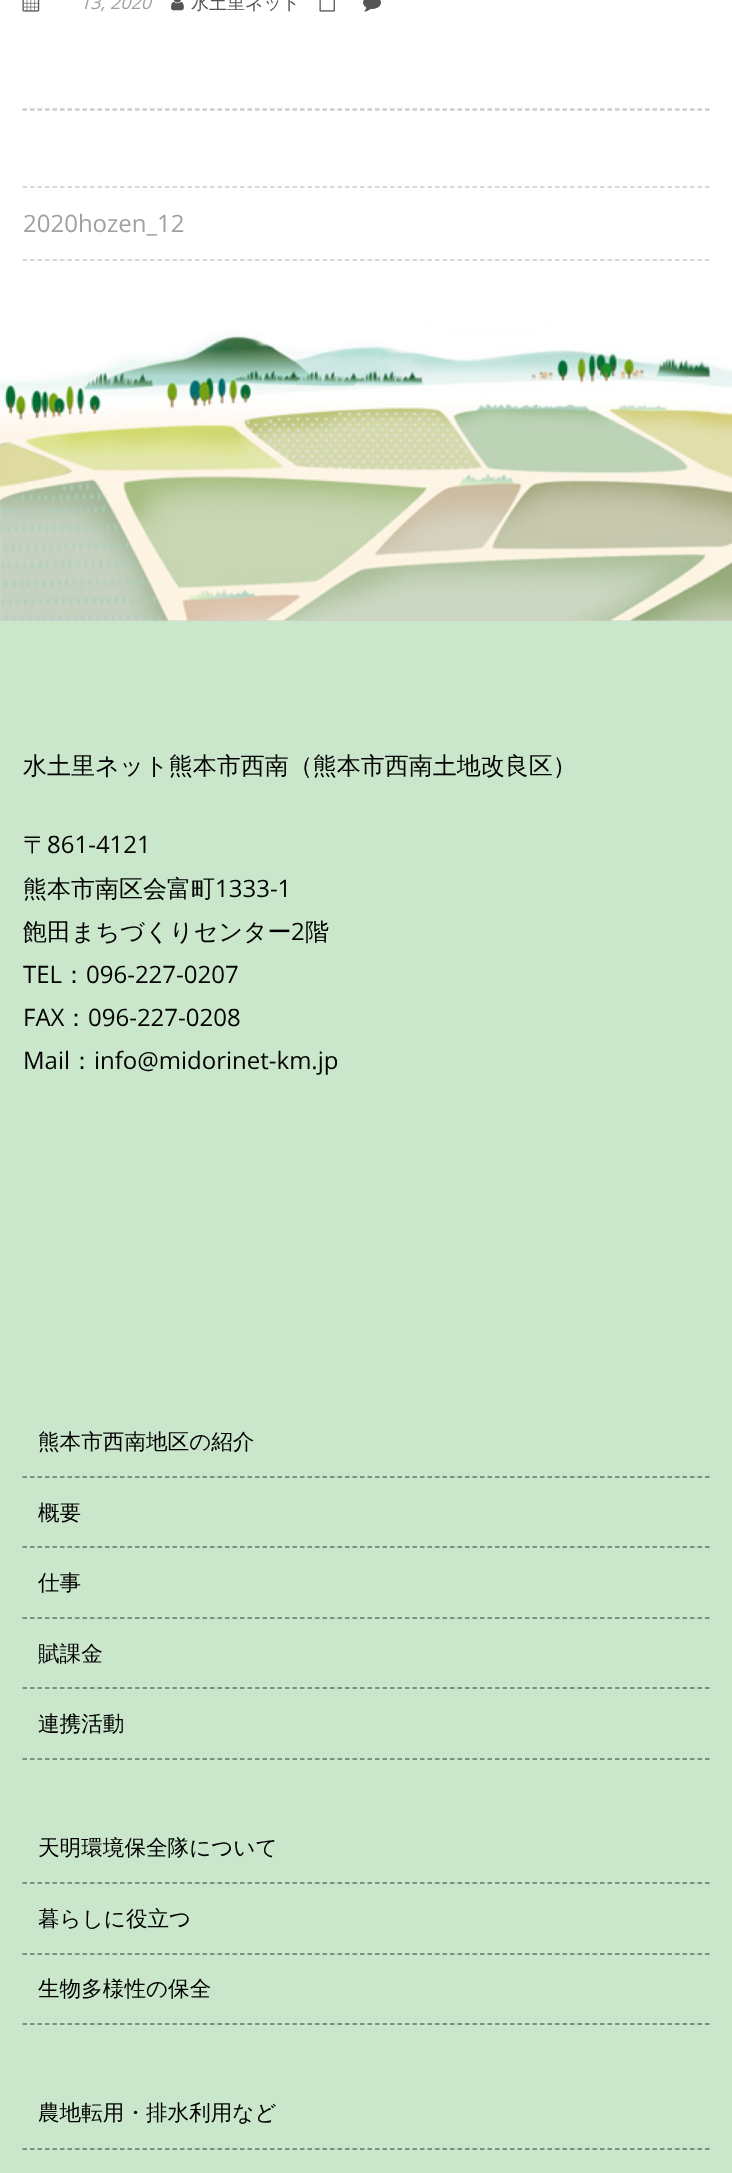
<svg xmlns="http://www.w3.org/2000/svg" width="732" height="2173">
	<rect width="100%" height="100%" fill="#FFFFFF" />
	<image x="22" y="0" width="18" height="12" href="assets/img1.png" />
	<text x="80" y="9" font-family="Open Sans" font-size="18" font-style="italic" fill="#A0A0A0">13, 2020</text>
	<image x="171" y="0" width="13" height="11" href="assets/img2.png" />
	<text x="191" y="9" font-family="WenQuanYi Zen Hei" font-size="18" font-weight="500" fill="#555555">水土里ネット</text>
	<image x="319" y="0" width="16" height="12" href="assets/img3.png" />
	<image x="363" y="0" width="18" height="12" href="assets/img4.png" />
	<path d="M22.5 109H709.5" fill="none" stroke="#CCCCCC" stroke-width="1.5" stroke-dasharray="4.5 3" />
	<path d="M22.5 110H709.5" fill="none" stroke="#CCCCCC" stroke-width="1.5" stroke-dasharray="4.5 3" />
	<path d="M22.5 187H709.5" fill="none" stroke="#CCCCCC" stroke-width="1.5" stroke-dasharray="4.5 3" />
	<path d="M22.5 260H709.5" fill="none" stroke="#CCCCCC" stroke-width="1.5" stroke-dasharray="4.5 3" />
	<text x="23" y="232" font-family="Open Sans" font-size="24" fill="#A0A0A0">2020hozen_12</text>
	<rect x="0" y="620" width="732" height="1" fill="#CCCCCC" />
	<image x="0" y="321" width="732" height="300" href="assets/img5.png" />
	<rect x="0" y="621" width="732" height="1552" fill="#CAE7CC" />
	<g font-family="WenQuanYi Zen Hei" font-size="24" font-weight="500" fill="#000000">
		<text x="23" y="774">水土里ネット熊本市西南（熊本市西南土地改良区）</text>
		<text x="23" y="853">〒</text>
	</g>
	<text x="47" y="853" font-family="Open Sans" font-size="24" fill="#000000">861-4121</text>
	<text x="23" y="897" font-family="WenQuanYi Zen Hei" font-size="24" font-weight="500" fill="#000000">熊本市南区会富町</text>
	<text x="215" y="897" font-family="Open Sans" font-size="24" fill="#000000">1333-1</text>
	<text x="23" y="940" font-family="WenQuanYi Zen Hei" font-size="24" font-weight="500" fill="#000000">飽田まちづくりセンター</text>
	<text x="291" y="940" font-family="Open Sans" font-size="24" fill="#000000">2</text>
	<text x="305" y="940" font-family="WenQuanYi Zen Hei" font-size="24" font-weight="500" fill="#000000">階</text>
	<text x="23" y="983" font-family="Open Sans" font-size="24" fill="#000000">TEL</text>
	<text x="62" y="983" font-family="WenQuanYi Zen Hei" font-size="24" font-weight="500" fill="#000000">：</text>
	<g font-family="Open Sans" font-size="24" fill="#000000">
		<text x="86" y="983">096-227-0207</text>
		<text x="23" y="1026">FAX</text>
	</g>
	<text x="64" y="1026" font-family="WenQuanYi Zen Hei" font-size="24" font-weight="500" fill="#000000">：</text>
	<g font-family="Open Sans" font-size="24" fill="#000000">
		<text x="88" y="1026">096-227-0208</text>
		<text x="23" y="1069">Mail</text>
	</g>
	<text x="70" y="1069" font-family="WenQuanYi Zen Hei" font-size="24" font-weight="500" fill="#000000">：</text>
	<text x="94" y="1069" font-family="Open Sans" font-size="24" fill="#000000">info@midorinet-km.jp</text>
	<path d="M22.5 1477H709.5" fill="none" stroke="#657466" stroke-width="1.5" stroke-dasharray="4.5 3" />
	<text x="38" y="1449" font-family="WenQuanYi Zen Hei" font-size="21.6" font-weight="500" fill="#000000">熊本市西南地区の紹介</text>
	<path d="M22.5 1547H709.5" fill="none" stroke="#657466" stroke-width="1.5" stroke-dasharray="4.5 3" />
	<text x="38" y="1520" font-family="WenQuanYi Zen Hei" font-size="21.6" font-weight="500" fill="#000000">概要</text>
	<path d="M22.5 1618H709.5" fill="none" stroke="#657466" stroke-width="1.5" stroke-dasharray="4.5 3" />
	<text x="38" y="1590" font-family="WenQuanYi Zen Hei" font-size="21.6" font-weight="500" fill="#000000">仕事</text>
	<path d="M22.5 1688H709.5" fill="none" stroke="#657466" stroke-width="1.5" stroke-dasharray="4.5 3" />
	<text x="38" y="1661" font-family="WenQuanYi Zen Hei" font-size="21.6" font-weight="500" fill="#000000">賦課金</text>
	<path d="M22.5 1759H709.5" fill="none" stroke="#657466" stroke-width="1.5" stroke-dasharray="4.5 3" />
	<text x="38" y="1731" font-family="WenQuanYi Zen Hei" font-size="21.6" font-weight="500" fill="#000000">連携活動</text>
	<path d="M22.5 1883H709.5" fill="none" stroke="#657466" stroke-width="1.5" stroke-dasharray="4.5 3" />
	<text x="38" y="1855" font-family="WenQuanYi Zen Hei" font-size="21.6" font-weight="500" fill="#000000">天明環境保全隊について</text>
	<path d="M22.5 1954H709.5" fill="none" stroke="#657466" stroke-width="1.5" stroke-dasharray="4.5 3" />
	<text x="38" y="1926" font-family="WenQuanYi Zen Hei" font-size="21.6" font-weight="500" fill="#000000">暮らしに役立つ</text>
	<path d="M22.5 2024H709.5" fill="none" stroke="#657466" stroke-width="1.5" stroke-dasharray="4.5 3" />
	<text x="38" y="1996" font-family="WenQuanYi Zen Hei" font-size="21.6" font-weight="500" fill="#000000">生物多様性の保全</text>
	<path d="M22.5 2149H709.5" fill="none" stroke="#657466" stroke-width="1.5" stroke-dasharray="4.5 3" />
	<text x="38" y="2120" font-family="WenQuanYi Zen Hei" font-size="21.6" font-weight="500" fill="#000000">農地転用・排水利用など</text>
</svg>
